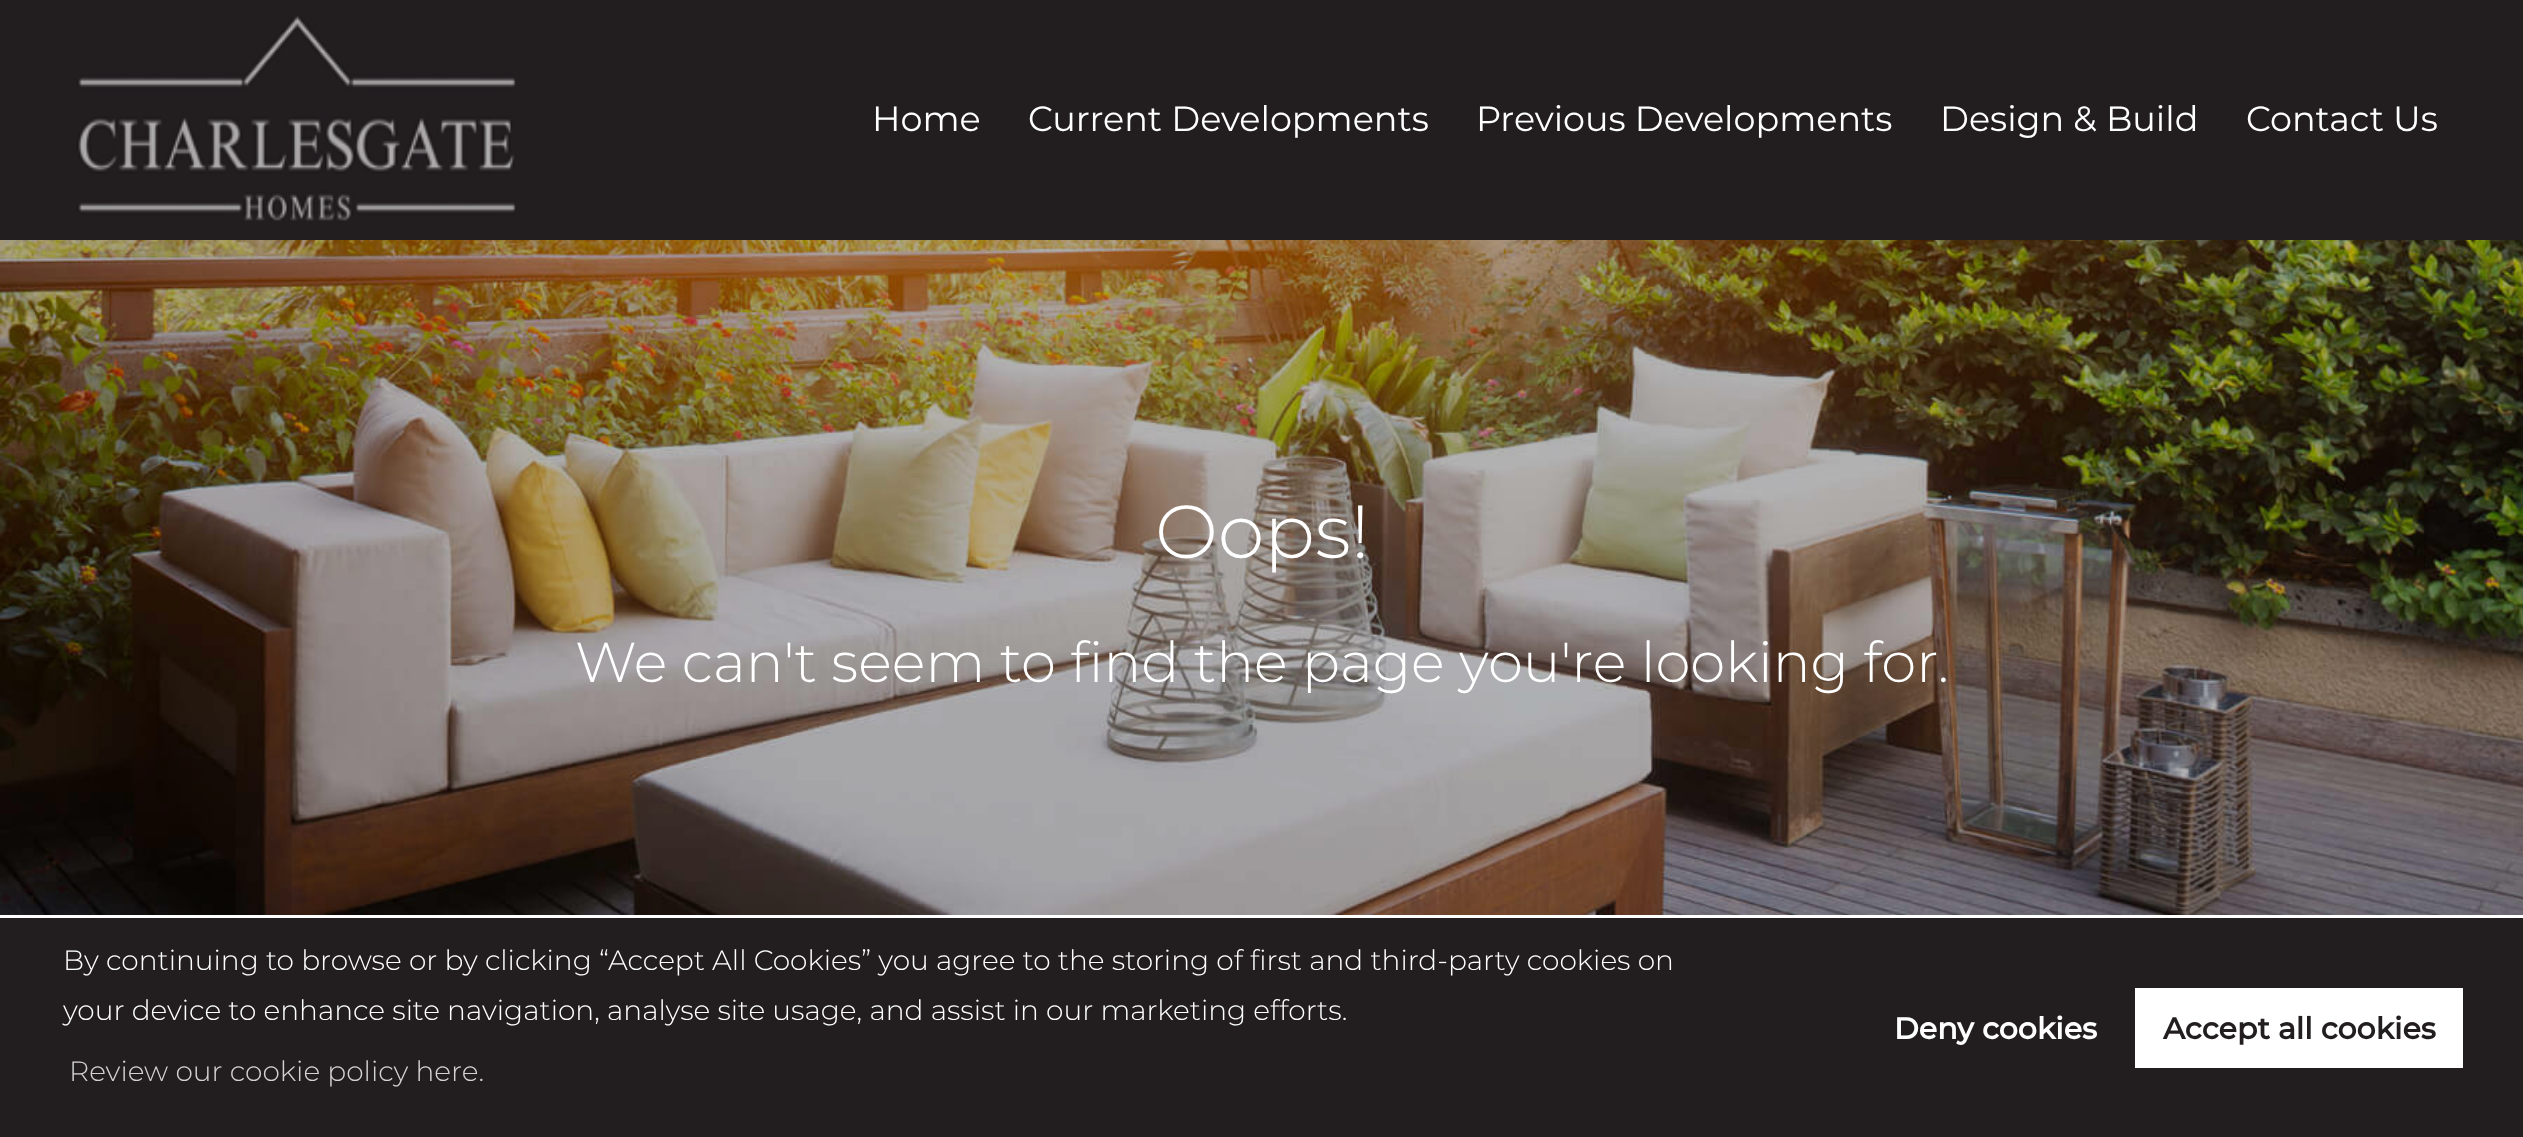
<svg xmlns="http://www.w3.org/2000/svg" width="2523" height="1137">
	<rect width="100%" height="100%" fill="#FFFFFF" />
	<rect x="0" y="0" width="2523" height="240" fill="#221E20" />
	<image x="76" y="16" width="440" height="205" href="assets/img1.png" />
	<g font-family="Montserrat" font-size="35" fill="#FFFFFF">
		<text x="872" y="131">Home</text>
		<text x="1028" y="131">Current Developments</text>
		<text x="1476" y="131">Previous Developments</text>
		<text x="1940" y="131">Design &amp; Build</text>
		<text x="2246" y="131">Contact Us</text>
	</g>
	<image x="0" y="240" width="2523" height="675" href="assets/img2.png" />
	<text x="1155" y="558" font-family="Montserrat" font-size="75" font-weight="300" fill="#FFFFFF">Oops!</text>
	<text x="575" y="682" font-family="Montserrat" font-size="56.25" font-weight="300" fill="#FFFFFF">We can't seem to find the page you're looking for.</text>
	<rect x="0" y="918" width="2523" height="219" fill="#221E20" />
	<g font-family="Montserrat" font-size="28" font-weight="300" fill="#FFFFFF">
		<text x="63" y="970">By continuing to browse or by clicking “Accept All Cookies” you agree to the storing of first and third-party cookies on</text>
		<text x="63" y="1020">your device to enhance site navigation, analyse site usage, and assist in our marketing efforts.</text>
	</g>
	<text x="69" y="1081" font-family="Montserrat" font-size="28" font-weight="300" fill="#D3D2D2">Review our cookie policy here.</text>
	<text x="1894" y="1039" font-family="Montserrat" font-size="30" font-weight="700" fill="#FFFFFF">Deny cookies</text>
	<rect x="2135" y="988" width="328" height="80" fill="#FFFFFF" />
	<text x="2163" y="1039" font-family="Montserrat" font-size="30" font-weight="700" fill="#221E20">Accept all cookies</text>
</svg>
